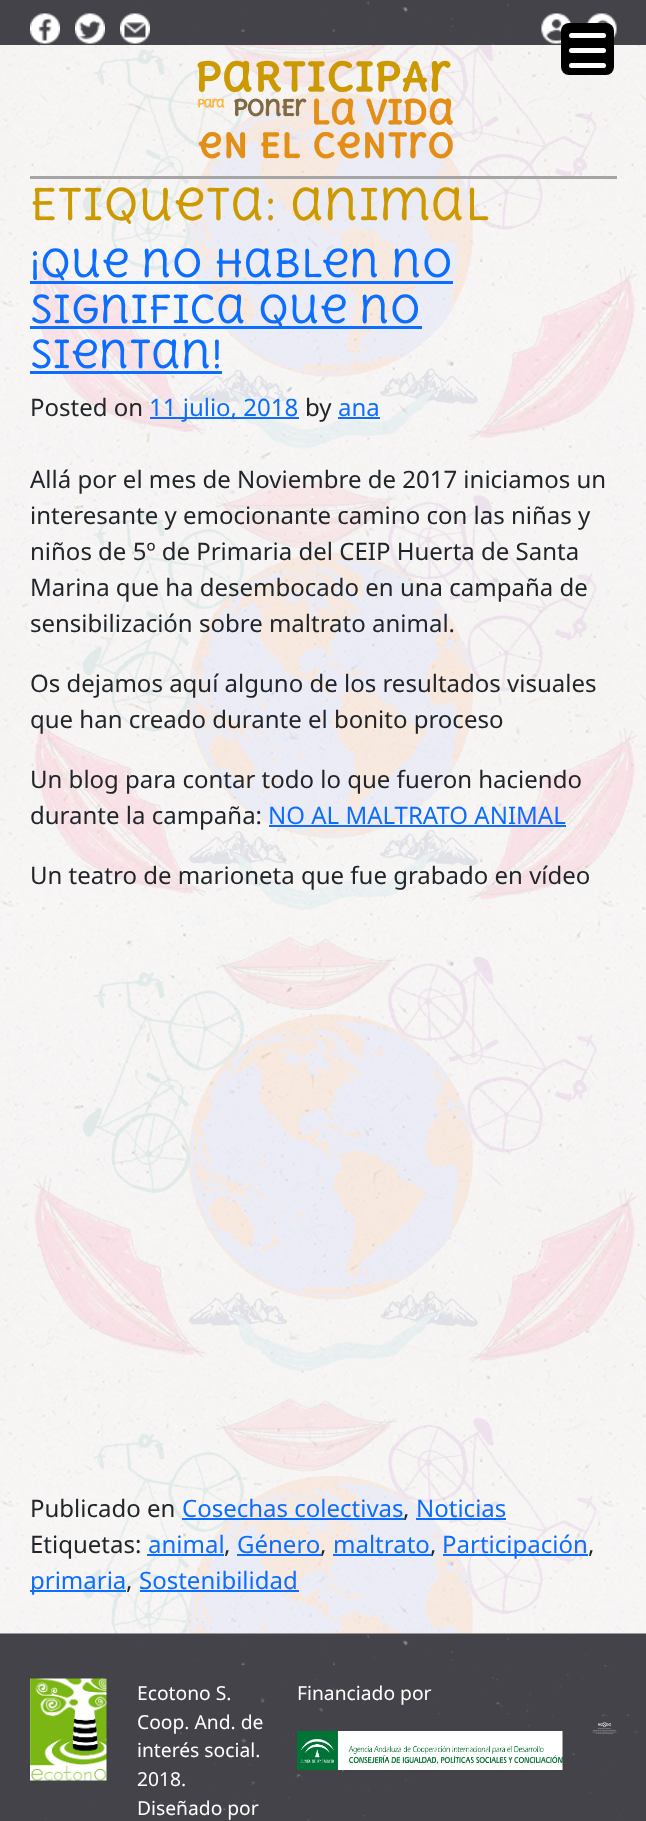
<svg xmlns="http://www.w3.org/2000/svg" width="646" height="1821">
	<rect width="100%" height="100%" fill="#FFFFFF" />
	<image x="0" y="45" width="646" height="1589" href="assets/img1.png" />
	<image x="33" y="45" width="604" height="1589" href="assets/img2.png" />
	<image x="0" y="0" width="646" height="45" href="assets/img3.png" />
	<image x="30" y="13" width="30" height="31" href="assets/img4.png" />
	<image x="75" y="13" width="30" height="31" href="assets/img5.png" />
	<image x="120" y="13" width="30" height="31" href="assets/img6.png" />
	<image x="541" y="13" width="31" height="31" href="assets/img7.png" />
	<image x="586" y="13" width="31" height="25" href="assets/img8.png" />
	<rect x="0" y="45" width="646" height="134" fill="#FFFFFF" fill-opacity="0.6" />
	<rect x="561" y="23" width="53" height="52" rx="8" fill="#000000" />
	<rect x="569" y="48" width="37" height="5" rx="2.5" fill="#FFFFFF" />
	<rect x="569" y="33" width="37" height="5" rx="2.5" fill="#FFFFFF" />
	<rect x="569" y="63" width="37" height="5" rx="2.5" fill="#FFFFFF" />
	<rect x="30" y="176" width="587" height="3" fill="#A5A5A5" />
	<image x="197" y="60" width="256" height="99" href="assets/img9.png" />
	<rect x="0" y="179" width="646" height="1455" fill="#FFFFFF" fill-opacity="0.6" />
	<text x="30" y="220" font-family="Delius Unicase" font-size="42.75" fill="#CC9900">Etiqueta: animal</text>
	<text x="30" y="277" font-family="Delius Unicase" font-size="37.6" fill="#0D6EFD">¡Que no hablen no</text>
	<rect x="30" y="281" width="423" height="3" fill="#0D6EFD" />
	<rect x="30" y="326" width="392" height="3" fill="#0D6EFD" />
	<g font-family="Delius Unicase" font-size="37.6" fill="#0D6EFD">
		<text x="30" y="323">significa que no</text>
		<text x="30" y="368">sientan!</text>
	</g>
	<rect x="30" y="371" width="192" height="3" fill="#0D6EFD" />
	<text x="30" y="416" font-family="Noto Sans" font-size="24" fill="#212529">Posted on</text>
	<rect x="150" y="417" width="149" height="2" fill="#0D6EFD" />
	<text x="149" y="416" font-family="Noto Sans" font-size="24" fill="#0D6EFD">11 julio, 2018</text>
	<text x="305" y="416" font-family="Noto Sans" font-size="24" fill="#212529">by</text>
	<text x="338" y="416" font-family="Noto Sans" font-size="24" fill="#0D6EFD">ana</text>
	<rect x="338" y="417" width="42" height="2" fill="#0D6EFD" />
	<g font-family="Noto Sans" font-size="24" fill="#212529">
		<text x="30" y="488">Allá por el mes de Noviembre de 2017 iniciamos un</text>
		<text x="30" y="524">interesante y emocionante camino con las niñas y</text>
		<text x="30" y="560">niños de 5º de Primaria del CEIP Huerta de Santa</text>
		<text x="30" y="596">Marina que ha desembocado en una campaña de</text>
		<text x="30" y="632">sensibilización sobre maltrato animal.</text>
		<text x="30" y="692">Os dejamos aquí alguno de los resultados visuales</text>
		<text x="30" y="728">que han creado durante el bonito proceso</text>
		<text x="30" y="788">Un blog para contar todo lo que fueron haciendo</text>
		<text x="30" y="824">durante la campaña:</text>
	</g>
	<text x="268" y="824" font-family="Noto Sans" font-size="24" fill="#0D6EFD">NO AL MALTRATO ANIMAL</text>
	<rect x="269" y="825" width="297" height="2" fill="#0D6EFD" />
	<g font-family="Noto Sans" font-size="24" fill="#212529">
		<text x="30" y="884">Un teatro de marioneta que fue grabado en vídeo</text>
		<text x="30" y="1517">Publicado en</text>
	</g>
	<text x="182" y="1517" font-family="Noto Sans" font-size="24" fill="#0D6EFD">Cosechas colectivas</text>
	<text x="403" y="1517" font-family="Noto Sans" font-size="24" fill="#212529">,</text>
	<rect x="182" y="1518" width="222" height="2" fill="#0D6EFD" />
	<rect x="416" y="1518" width="90" height="2" fill="#0D6EFD" />
	<text x="416" y="1517" font-family="Noto Sans" font-size="24" fill="#0D6EFD">Noticias</text>
	<text x="30" y="1553" font-family="Noto Sans" font-size="24" fill="#212529">Etiquetas:</text>
	<text x="148" y="1553" font-family="Noto Sans" font-size="24" fill="#0D6EFD">animal</text>
	<text x="224" y="1553" font-family="Noto Sans" font-size="24" fill="#212529">,</text>
	<rect x="147" y="1554" width="77" height="2" fill="#0D6EFD" />
	<text x="237" y="1553" font-family="Noto Sans" font-size="24" fill="#0D6EFD">Género</text>
	<text x="320" y="1553" font-family="Noto Sans" font-size="24" fill="#212529">,</text>
	<rect x="237" y="1554" width="84" height="2" fill="#0D6EFD" />
	<text x="333" y="1553" font-family="Noto Sans" font-size="24" fill="#0D6EFD">maltrato</text>
	<rect x="333" y="1554" width="98" height="2" fill="#0D6EFD" />
	<text x="430" y="1553" font-family="Noto Sans" font-size="24" fill="#212529">,</text>
	<rect x="443" y="1554" width="145" height="2" fill="#0D6EFD" />
	<text x="442" y="1553" font-family="Noto Sans" font-size="24" fill="#0D6EFD">Participación</text>
	<text x="588" y="1553" font-family="Noto Sans" font-size="24" fill="#212529">,</text>
	<rect x="30" y="1590" width="96" height="2" fill="#0D6EFD" />
	<text x="30" y="1589" font-family="Noto Sans" font-size="24" fill="#0D6EFD">primaria</text>
	<text x="126" y="1589" font-family="Noto Sans" font-size="24" fill="#212529">,</text>
	<rect x="140" y="1590" width="159" height="2" fill="#0D6EFD" />
	<text x="139" y="1589" font-family="Noto Sans" font-size="24" fill="#0D6EFD">Sostenibilidad</text>
	<image x="0" y="1633" width="646" height="188" href="assets/img10.png" />
	<image x="30" y="1678" width="77" height="103" href="assets/img11.png" />
	<g font-family="Noto Sans" font-size="19.25" fill="#FFFFFF">
		<text x="137" y="1700">Ecotono S.</text>
		<text x="137" y="1729">Coop. And. de</text>
		<text x="137" y="1757">interés social.</text>
		<text x="137" y="1786">2018.</text>
		<text x="137" y="1815">Diseñado por</text>
		<text x="297" y="1700">Financiado por</text>
	</g>
	<image x="592" y="1722" width="25" height="12" href="assets/img12.png" />
	<image x="297" y="1731" width="266" height="39" href="assets/img13.png" />
</svg>
